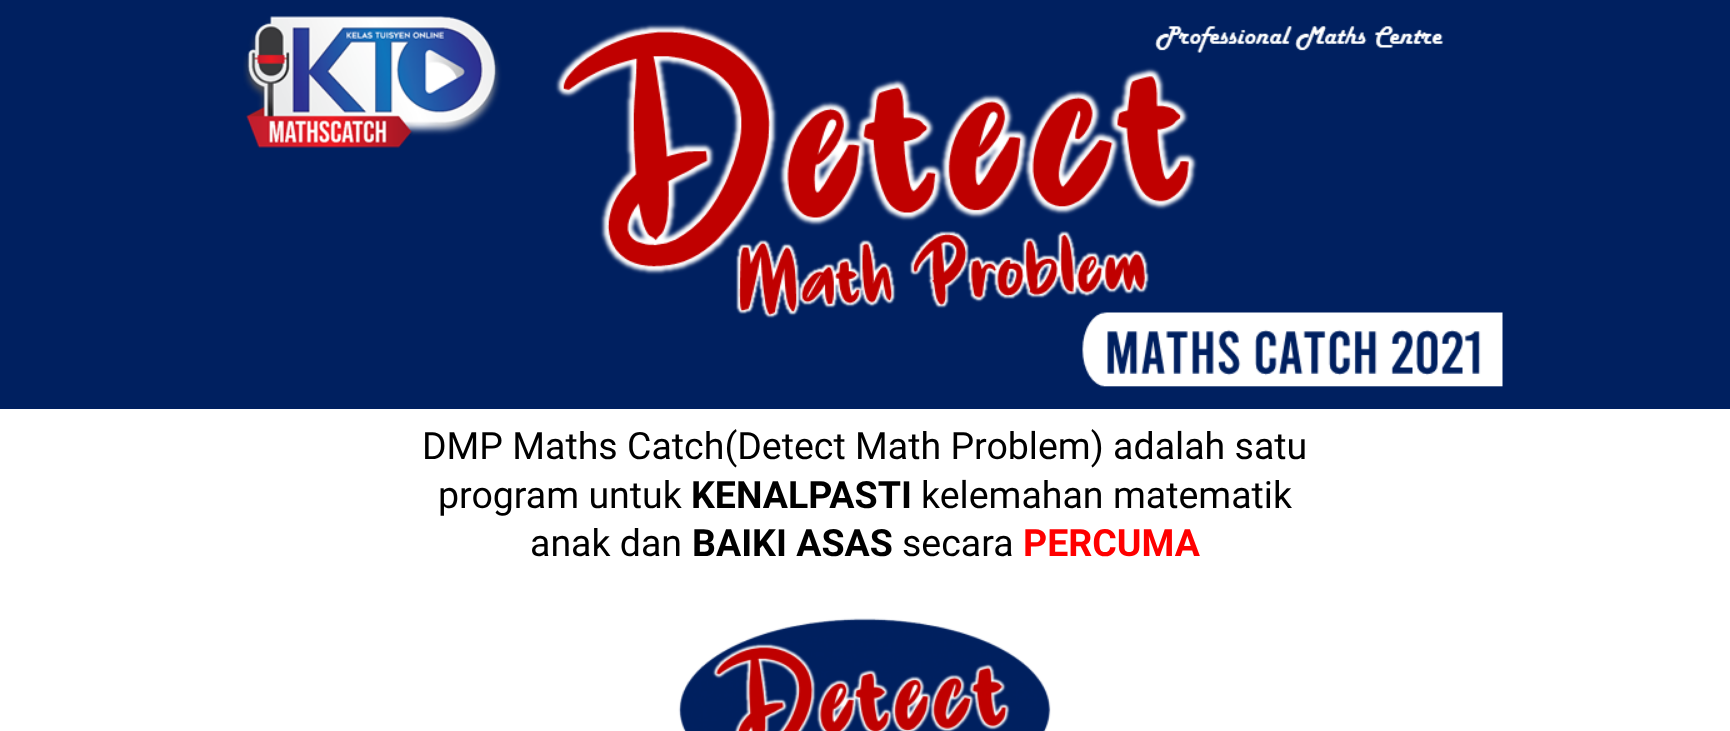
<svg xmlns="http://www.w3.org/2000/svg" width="1730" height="731">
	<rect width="100%" height="100%" fill="#FFFFFF" />
	<rect x="0" y="0" width="1730" height="409" fill="#002060" />
	<image x="243" y="16" width="1260" height="371" href="assets/img1.png" />
	<g font-family="Roboto" font-size="37.5" fill="#000000">
		<text x="422" y="459">DMP Maths Catch(Detect Math Problem) adalah satu</text>
		<text x="438" y="508">program untuk</text>
	</g>
	<text x="691" y="508" font-family="Roboto" font-size="37.5" font-weight="700" fill="#000000">KENALPASTI</text>
	<g font-family="Roboto" font-size="37.5" fill="#000000">
		<text x="921" y="508">kelemahan matematik</text>
		<text x="530" y="556">anak dan</text>
	</g>
	<text x="692" y="556" font-family="Roboto" font-size="37.5" font-weight="700" fill="#000000">BAIKI ASAS</text>
	<text x="902" y="556" font-family="Roboto" font-size="37.5" fill="#000000">secara</text>
	<text x="1023" y="556" font-family="Roboto" font-size="37.5" font-weight="700" fill="#FF0000">PERCUMA</text>
	<image x="678" y="618" width="373" height="113" href="assets/img2.png" />
</svg>
